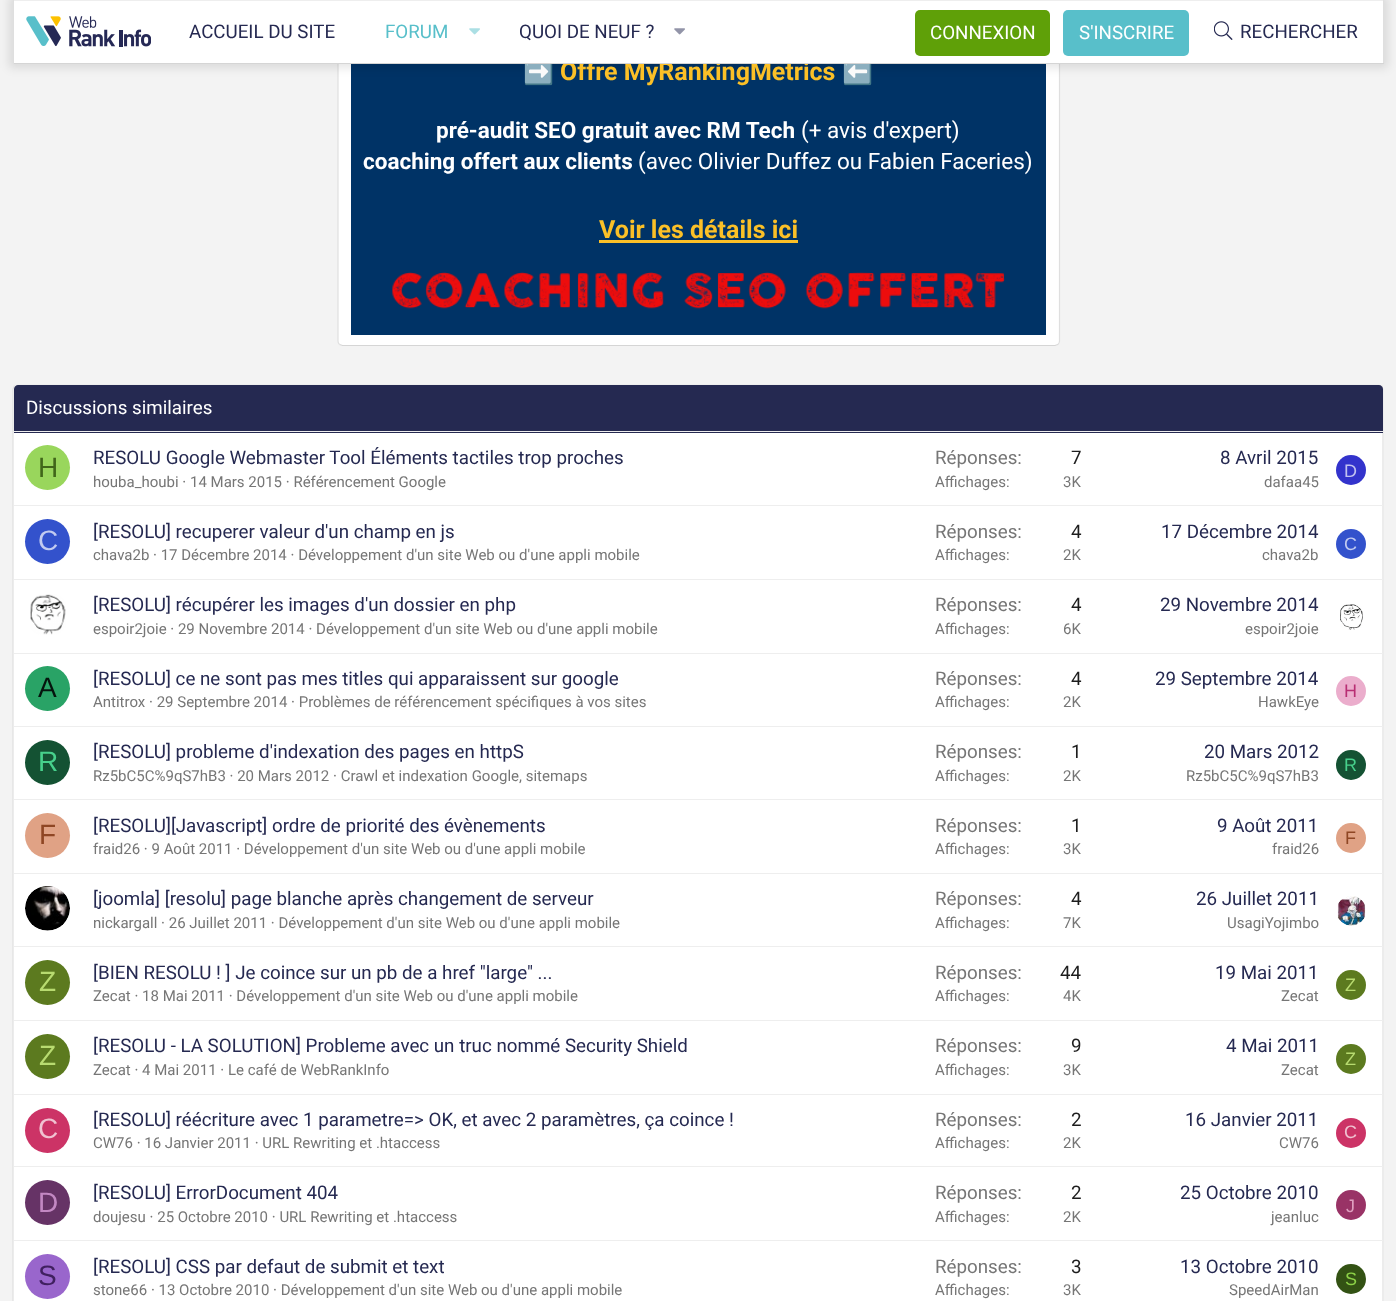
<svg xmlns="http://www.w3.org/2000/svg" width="1396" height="1301">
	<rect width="100%" height="100%" fill="#F3F3F3" />
	<rect x="338" y="36" width="722" height="310" rx="5" fill="#FFFFFF" />
	<path d="M1058 38C1059 39 1059.5 40 1059.5 41V341C1059.5 342.5 1059 343.5 1058 344.5" fill="none" stroke="#DFDFDF" stroke-width="1.2" />
	<path d="M1058 344.5L1055 345.5H342.5L339.5 344.5" fill="none" stroke="#D5D5D5" stroke-width="1.2" />
	<path d="M339.5 344.5C338.5 343.5 338 342.5 338 341V41C338 40 338.5 39 339.5 38" fill="none" stroke="#DFDFDF" stroke-width="1.2" />
	<rect x="351" y="64" width="695" height="271" fill="#003366" />
	<rect x="9" y="-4" width="1379" height="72" fill="#000000" fill-opacity="0.1" filter="blur(5px)" />
	<text x="523" y="80" font-family="Noto Color Emoji" font-size="25" fill="#FBC027">➡️</text>
	<text x="560" y="80" font-family="Roboto" font-size="25" font-weight="700" fill="#FBC027">Offre MyRankingMetrics</text>
	<text x="842" y="80" font-family="Noto Color Emoji" font-size="25" fill="#FBC027">⬅️</text>
	<rect x="14" y="1" width="1369" height="62" fill="#FFFFFF" />
	<rect x="13" y="0" width="1371" height="1" fill="#EEEEEE" />
	<rect x="1383" y="0" width="1" height="64" fill="#DFDFDF" />
	<rect x="13" y="63" width="1371" height="1" fill="#D5D5D5" />
	<rect x="13" y="0" width="1" height="64" fill="#DFDFDF" />
	<image x="26" y="16" width="125" height="31" href="assets/img1.png" />
	<text x="189" y="38" font-family="Roboto" font-size="18.75" fill="#252951">ACCUEIL DU SITE</text>
	<text x="385" y="38" font-family="Roboto" font-size="18.75" fill="#58BFCA">FORUM</text>
	<image x="469" y="28" width="11" height="7" href="assets/img2.png" />
	<text x="519" y="38" font-family="Roboto" font-size="18.75" fill="#252951">QUOI DE NEUF ?</text>
	<image x="674" y="28" width="11" height="7" href="assets/img3.png" />
	<rect x="915" y="10" width="135" height="46" rx="5" fill="#5FA008" />
	<text x="930" y="39" font-family="Roboto" font-size="18.75" fill="#FFFFFF">CONNEXION</text>
	<rect x="1063" y="10" width="126" height="46" rx="5" fill="#58BFCA" />
	<text x="1079" y="39" font-family="Roboto" font-size="18.75" fill="#FFFFFF">S'INSCRIRE</text>
	<image x="1214" y="21" width="19" height="19" href="assets/img4.png" />
	<text x="1240" y="38" font-family="Roboto" font-size="18.75" fill="#252951">RECHERCHER</text>
	<text x="436" y="138" font-family="Roboto" font-size="22.5" font-weight="700" fill="#FFFFFF">pré-audit SEO gratuit avec RM Tech</text>
	<text x="801" y="138" font-family="Roboto" font-size="22.5" fill="#FFFFFF">(+ avis d'expert)</text>
	<text x="363" y="169" font-family="Roboto" font-size="22.5" font-weight="700" fill="#FFFFFF">coaching offert aux clients</text>
	<text x="638" y="169" font-family="Roboto" font-size="22.5" fill="#FFFFFF">(avec Olivier Duffez ou Fabien Faceries)</text>
	<text x="599" y="238" font-family="Roboto" font-size="25" font-weight="700" fill="#FBC027">Voir les détails ici</text>
	<rect x="599" y="240" width="199" height="3" fill="#FBC027" />
	<image x="392" y="272" width="613" height="37" href="assets/img5.png" />
	<rect x="13" y="384" width="1371" height="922" rx="5" fill="#FFFFFF" />
	<path d="M14.5 385.5L17.5 384.5H1379L1382 385.5" fill="none" stroke="#EEEEEE" stroke-width="1.2" />
	<path d="M1382 385.5L1383 389V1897.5L1382 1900.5" fill="none" stroke="#DFDFDF" stroke-width="1.2" />
	<path d="M14.5 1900.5L13 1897.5V389L14.5 385.5" fill="none" stroke="#DFDFDF" stroke-width="1.2" />
	<path d="M18 385H1379C1381 385 1383 387 1383 389V433H14V389C14 387 16 385 18 385Z" fill="#252951" />
	<rect x="14" y="431" width="1369" height="1" fill="#EEEEEE" />
	<text x="26" y="414" font-family="Roboto" font-size="18.75" fill="#FFFFFF">Discussions similaires</text>
	<circle cx="47.5" cy="467.5" r="22.5" fill="#99D65C" />
	<text x="38" y="477" font-family="Liberation Sans" font-size="28" fill="#40661A">H</text>
	<text x="93" y="464" font-family="Roboto" font-size="18.75" fill="#252951">RESOLU Google Webmaster Tool Éléments tactiles trop proches</text>
	<text x="93" y="487" font-family="Roboto" font-size="15" fill="#767676">houba_houbi · 14 Mars 2015 · Référencement Google</text>
	<text x="935" y="464" font-family="Roboto" font-size="18.75" fill="#767676">Réponses:</text>
	<text x="1071" y="464" font-family="Roboto" font-size="18.75" fill="#1D1D1D">7</text>
	<g font-family="Roboto" font-size="15" fill="#767676">
		<text x="935" y="487">Affichages:</text>
		<text x="1063" y="487">3K</text>
	</g>
	<text x="1220" y="464" font-family="Roboto" font-size="18.75" fill="#252951">8 Avril 2015</text>
	<text x="1264" y="487" font-family="Roboto" font-size="15" fill="#767676">dafaa45</text>
	<circle cx="1351" cy="470" r="15" fill="#3333CC" />
	<text x="1344" y="477" font-family="Liberation Sans" font-size="18" fill="#C2C2F0">D</text>
	<rect x="14" y="505" width="1369" height="1" fill="#EEEEEE" />
	<circle cx="47.5" cy="541.5" r="22.5" fill="#3352CC" />
	<text x="38" y="550" font-family="Liberation Sans" font-size="28" fill="#C2CBF0">C</text>
	<text x="93" y="538" font-family="Roboto" font-size="18.75" fill="#252951">[RESOLU] recuperer valeur d'un champ en js</text>
	<text x="93" y="560" font-family="Roboto" font-size="15" fill="#767676">chava2b · 17 Décembre 2014 · Développement d'un site Web ou d'une appli mobile</text>
	<text x="935" y="538" font-family="Roboto" font-size="18.75" fill="#767676">Réponses:</text>
	<text x="1071" y="538" font-family="Roboto" font-size="18.75" fill="#1D1D1D">4</text>
	<g font-family="Roboto" font-size="15" fill="#767676">
		<text x="935" y="560">Affichages:</text>
		<text x="1063" y="560">2K</text>
	</g>
	<text x="1161" y="538" font-family="Roboto" font-size="18.75" fill="#252951">17 Décembre 2014</text>
	<text x="1262" y="560" font-family="Roboto" font-size="15" fill="#767676">chava2b</text>
	<circle cx="1351" cy="544" r="15" fill="#3352CC" />
	<text x="1344" y="550" font-family="Liberation Sans" font-size="18" fill="#C2CBF0">C</text>
	<rect x="14" y="579" width="1369" height="1" fill="#EEEEEE" />
	<image x="30" y="594" width="36" height="41" href="assets/img6.png" />
	<text x="93" y="611" font-family="Roboto" font-size="18.75" fill="#252951">[RESOLU] récupérer les images d'un dossier en php</text>
	<text x="93" y="634" font-family="Roboto" font-size="15" fill="#767676">espoir2joie · 29 Novembre 2014 · Développement d'un site Web ou d'une appli mobile</text>
	<text x="935" y="611" font-family="Roboto" font-size="18.75" fill="#767676">Réponses:</text>
	<text x="1071" y="611" font-family="Roboto" font-size="18.75" fill="#1D1D1D">4</text>
	<g font-family="Roboto" font-size="15" fill="#767676">
		<text x="935" y="634">Affichages:</text>
		<text x="1063" y="634">6K</text>
	</g>
	<text x="1160" y="611" font-family="Roboto" font-size="18.75" fill="#252951">29 Novembre 2014</text>
	<text x="1245" y="634" font-family="Roboto" font-size="15" fill="#767676">espoir2joie</text>
	<image x="1340" y="604" width="23" height="26" href="assets/img7.png" />
	<rect x="14" y="653" width="1369" height="1" fill="#EEEEEE" />
	<circle cx="47.5" cy="688.5" r="22.5" fill="#29A366" />
	<text x="38" y="697" font-family="Liberation Sans" font-size="28" fill="#05140D">A</text>
	<text x="93" y="685" font-family="Roboto" font-size="18.75" fill="#252951">[RESOLU] ce ne sont pas mes titles qui apparaissent sur google</text>
	<text x="93" y="707" font-family="Roboto" font-size="15" fill="#767676">Antitrox · 29 Septembre 2014 · Problèmes de référencement spécifiques à vos sites</text>
	<text x="935" y="685" font-family="Roboto" font-size="18.75" fill="#767676">Réponses:</text>
	<text x="1071" y="685" font-family="Roboto" font-size="18.75" fill="#1D1D1D">4</text>
	<g font-family="Roboto" font-size="15" fill="#767676">
		<text x="935" y="707">Affichages:</text>
		<text x="1063" y="707">2K</text>
	</g>
	<text x="1155" y="685" font-family="Roboto" font-size="18.75" fill="#252951">29 Septembre 2014</text>
	<text x="1258" y="707" font-family="Roboto" font-size="15" fill="#767676">HawkEye</text>
	<circle cx="1351" cy="691" r="15" fill="#EBADCC" />
	<text x="1344" y="697" font-family="Liberation Sans" font-size="18" fill="#B82E73">H</text>
	<rect x="14" y="726" width="1369" height="1" fill="#EEEEEE" />
	<circle cx="47.5" cy="762.5" r="22.5" fill="#145233" />
	<text x="38" y="771" font-family="Liberation Sans" font-size="28" fill="#47D18C">R</text>
	<text x="93" y="758" font-family="Roboto" font-size="18.75" fill="#252951">[RESOLU] probleme d'indexation des pages en httpS</text>
	<text x="93" y="781" font-family="Roboto" font-size="15" fill="#767676">Rz5bC5C%9qS7hB3 · 20 Mars 2012 · Crawl et indexation Google, sitemaps</text>
	<text x="935" y="758" font-family="Roboto" font-size="18.75" fill="#767676">Réponses:</text>
	<text x="1071" y="758" font-family="Roboto" font-size="18.75" fill="#1D1D1D">1</text>
	<g font-family="Roboto" font-size="15" fill="#767676">
		<text x="935" y="781">Affichages:</text>
		<text x="1063" y="781">2K</text>
	</g>
	<text x="1204" y="758" font-family="Roboto" font-size="18.75" fill="#252951">20 Mars 2012</text>
	<text x="1186" y="781" font-family="Roboto" font-size="15" fill="#767676">Rz5bC5C%9qS7hB3</text>
	<circle cx="1351" cy="765" r="15" fill="#145233" />
	<text x="1344" y="771" font-family="Liberation Sans" font-size="18" fill="#47D18C">R</text>
	<rect x="14" y="799" width="1369" height="1" fill="#EEEEEE" />
	<circle cx="47.5" cy="835.5" r="22.5" fill="#E0A285" />
	<text x="39" y="844" font-family="Liberation Sans" font-size="28" fill="#8F4624">F</text>
	<text x="93" y="832" font-family="Roboto" font-size="18.75" fill="#252951">[RESOLU][Javascript] ordre de priorité des évènements</text>
	<text x="93" y="854" font-family="Roboto" font-size="15" fill="#767676">fraid26 · 9 Août 2011 · Développement d'un site Web ou d'une appli mobile</text>
	<text x="935" y="832" font-family="Roboto" font-size="18.75" fill="#767676">Réponses:</text>
	<text x="1071" y="832" font-family="Roboto" font-size="18.75" fill="#1D1D1D">1</text>
	<g font-family="Roboto" font-size="15" fill="#767676">
		<text x="935" y="854">Affichages:</text>
		<text x="1063" y="854">3K</text>
	</g>
	<text x="1217" y="832" font-family="Roboto" font-size="18.75" fill="#252951">9 Août 2011</text>
	<text x="1272" y="854" font-family="Roboto" font-size="15" fill="#767676">fraid26</text>
	<circle cx="1351" cy="838" r="15" fill="#E0A285" />
	<text x="1345" y="844" font-family="Liberation Sans" font-size="18" fill="#8F4624">F</text>
	<rect x="14" y="873" width="1369" height="1" fill="#EEEEEE" />
	<image x="25" y="886" width="45" height="45" href="assets/img8.png" />
	<text x="93" y="905" font-family="Roboto" font-size="18.75" fill="#252951">[joomla] [resolu] page blanche après changement de serveur</text>
	<text x="93" y="928" font-family="Roboto" font-size="15" fill="#767676">nickargall · 26 Juillet 2011 · Développement d'un site Web ou d'une appli mobile</text>
	<text x="935" y="905" font-family="Roboto" font-size="18.75" fill="#767676">Réponses:</text>
	<text x="1071" y="905" font-family="Roboto" font-size="18.75" fill="#1D1D1D">4</text>
	<g font-family="Roboto" font-size="15" fill="#767676">
		<text x="935" y="928">Affichages:</text>
		<text x="1063" y="928">7K</text>
	</g>
	<text x="1196" y="905" font-family="Roboto" font-size="18.75" fill="#252951">26 Juillet 2011</text>
	<text x="1227" y="928" font-family="Roboto" font-size="15" fill="#767676">UsagiYojimbo</text>
	<image x="1337" y="896" width="29" height="30" href="assets/img9.png" />
	<rect x="14" y="946" width="1369" height="1" fill="#EEEEEE" />
	<circle cx="47.5" cy="982.5" r="22.5" fill="#5C7A1F" />
	<text x="39" y="991" font-family="Liberation Sans" font-size="28" fill="#B8DB70">Z</text>
	<text x="93" y="979" font-family="Roboto" font-size="18.75" fill="#252951">[BIEN RESOLU ! ] Je coince sur un pb de a href "large" ...</text>
	<text x="93" y="1001" font-family="Roboto" font-size="15" fill="#767676">Zecat · 18 Mai 2011 · Développement d'un site Web ou d'une appli mobile</text>
	<text x="935" y="979" font-family="Roboto" font-size="18.75" fill="#767676">Réponses:</text>
	<text x="1060" y="979" font-family="Roboto" font-size="18.75" fill="#1D1D1D">44</text>
	<g font-family="Roboto" font-size="15" fill="#767676">
		<text x="935" y="1001">Affichages:</text>
		<text x="1063" y="1001">4K</text>
	</g>
	<text x="1215" y="979" font-family="Roboto" font-size="18.75" fill="#252951">19 Mai 2011</text>
	<text x="1281" y="1001" font-family="Roboto" font-size="15" fill="#767676">Zecat</text>
	<circle cx="1351" cy="985" r="15" fill="#5C7A1F" />
	<text x="1345" y="991" font-family="Liberation Sans" font-size="18" fill="#B8DB70">Z</text>
	<rect x="14" y="1020" width="1369" height="1" fill="#EEEEEE" />
	<circle cx="47.5" cy="1056.5" r="22.5" fill="#5C7A1F" />
	<text x="39" y="1065" font-family="Liberation Sans" font-size="28" fill="#B8DB70">Z</text>
	<text x="93" y="1052" font-family="Roboto" font-size="18.75" fill="#252951">[RESOLU - LA SOLUTION] Probleme avec un truc nommé Security Shield</text>
	<text x="93" y="1075" font-family="Roboto" font-size="15" fill="#767676">Zecat · 4 Mai 2011 · Le café de WebRankInfo</text>
	<text x="935" y="1052" font-family="Roboto" font-size="18.75" fill="#767676">Réponses:</text>
	<text x="1071" y="1052" font-family="Roboto" font-size="18.75" fill="#1D1D1D">9</text>
	<g font-family="Roboto" font-size="15" fill="#767676">
		<text x="935" y="1075">Affichages:</text>
		<text x="1063" y="1075">3K</text>
	</g>
	<text x="1226" y="1052" font-family="Roboto" font-size="18.75" fill="#252951">4 Mai 2011</text>
	<text x="1281" y="1075" font-family="Roboto" font-size="15" fill="#767676">Zecat</text>
	<circle cx="1351" cy="1059" r="15" fill="#5C7A1F" />
	<text x="1345" y="1065" font-family="Liberation Sans" font-size="18" fill="#B8DB70">Z</text>
	<rect x="14" y="1094" width="1369" height="1" fill="#EEEEEE" />
	<circle cx="47.5" cy="1130.5" r="22.5" fill="#CC3366" />
	<text x="38" y="1138" font-family="Liberation Sans" font-size="28" fill="#F0C2D1">C</text>
	<text x="93" y="1126" font-family="Roboto" font-size="18.75" fill="#252951">[RESOLU] réécriture avec 1 parametre=&gt; OK, et avec 2 paramètres, ça coince !</text>
	<text x="93" y="1148" font-family="Roboto" font-size="15" fill="#767676">CW76 · 16 Janvier 2011 · URL Rewriting et .htaccess</text>
	<text x="935" y="1126" font-family="Roboto" font-size="18.75" fill="#767676">Réponses:</text>
	<text x="1071" y="1126" font-family="Roboto" font-size="18.75" fill="#1D1D1D">2</text>
	<g font-family="Roboto" font-size="15" fill="#767676">
		<text x="935" y="1148">Affichages:</text>
		<text x="1063" y="1148">2K</text>
	</g>
	<text x="1185" y="1126" font-family="Roboto" font-size="18.75" fill="#252951">16 Janvier 2011</text>
	<text x="1279" y="1148" font-family="Roboto" font-size="15" fill="#767676">CW76</text>
	<circle cx="1351" cy="1133" r="15" fill="#CC3366" />
	<text x="1344" y="1138" font-family="Liberation Sans" font-size="18" fill="#F0C2D1">C</text>
	<rect x="14" y="1166" width="1369" height="1" fill="#EEEEEE" />
	<circle cx="47.5" cy="1202.5" r="22.5" fill="#663366" />
	<text x="38" y="1212" font-family="Liberation Sans" font-size="28" fill="#C388C3">D</text>
	<text x="93" y="1199" font-family="Roboto" font-size="18.75" fill="#252951">[RESOLU] ErrorDocument 404</text>
	<text x="93" y="1222" font-family="Roboto" font-size="15" fill="#767676">doujesu · 25 Octobre 2010 · URL Rewriting et .htaccess</text>
	<text x="935" y="1199" font-family="Roboto" font-size="18.75" fill="#767676">Réponses:</text>
	<text x="1071" y="1199" font-family="Roboto" font-size="18.75" fill="#1D1D1D">2</text>
	<g font-family="Roboto" font-size="15" fill="#767676">
		<text x="935" y="1222">Affichages:</text>
		<text x="1063" y="1222">2K</text>
	</g>
	<text x="1180" y="1199" font-family="Roboto" font-size="18.75" fill="#252951">25 Octobre 2010</text>
	<text x="1271" y="1222" font-family="Roboto" font-size="15" fill="#767676">jeanluc</text>
	<circle cx="1351" cy="1205" r="15" fill="#993366" />
	<text x="1346" y="1212" font-family="Liberation Sans" font-size="18" fill="#DF9FBF">J</text>
	<rect x="14" y="1240" width="1369" height="1" fill="#EEEEEE" />
	<circle cx="47.5" cy="1276.5" r="22.5" fill="#9966CC" />
	<text x="38" y="1285" font-family="Liberation Sans" font-size="28" fill="#402060">S</text>
	<text x="93" y="1273" font-family="Roboto" font-size="18.75" fill="#252951">[RESOLU] CSS par defaut de submit et text</text>
	<text x="93" y="1295" font-family="Roboto" font-size="15" fill="#767676">stone66 · 13 Octobre 2010 · Développement d'un site Web ou d'une appli mobile</text>
	<text x="935" y="1273" font-family="Roboto" font-size="18.75" fill="#767676">Réponses:</text>
	<text x="1071" y="1273" font-family="Roboto" font-size="18.75" fill="#1D1D1D">3</text>
	<g font-family="Roboto" font-size="15" fill="#767676">
		<text x="935" y="1295">Affichages:</text>
		<text x="1063" y="1295">3K</text>
	</g>
	<text x="1180" y="1273" font-family="Roboto" font-size="18.75" fill="#252951">13 Octobre 2010</text>
	<text x="1229" y="1295" font-family="Roboto" font-size="15" fill="#767676">SpeedAirMan</text>
	<circle cx="1351" cy="1279" r="15" fill="#335214" />
	<text x="1345" y="1285" font-family="Liberation Sans" font-size="18" fill="#8CD147">S</text>
</svg>
